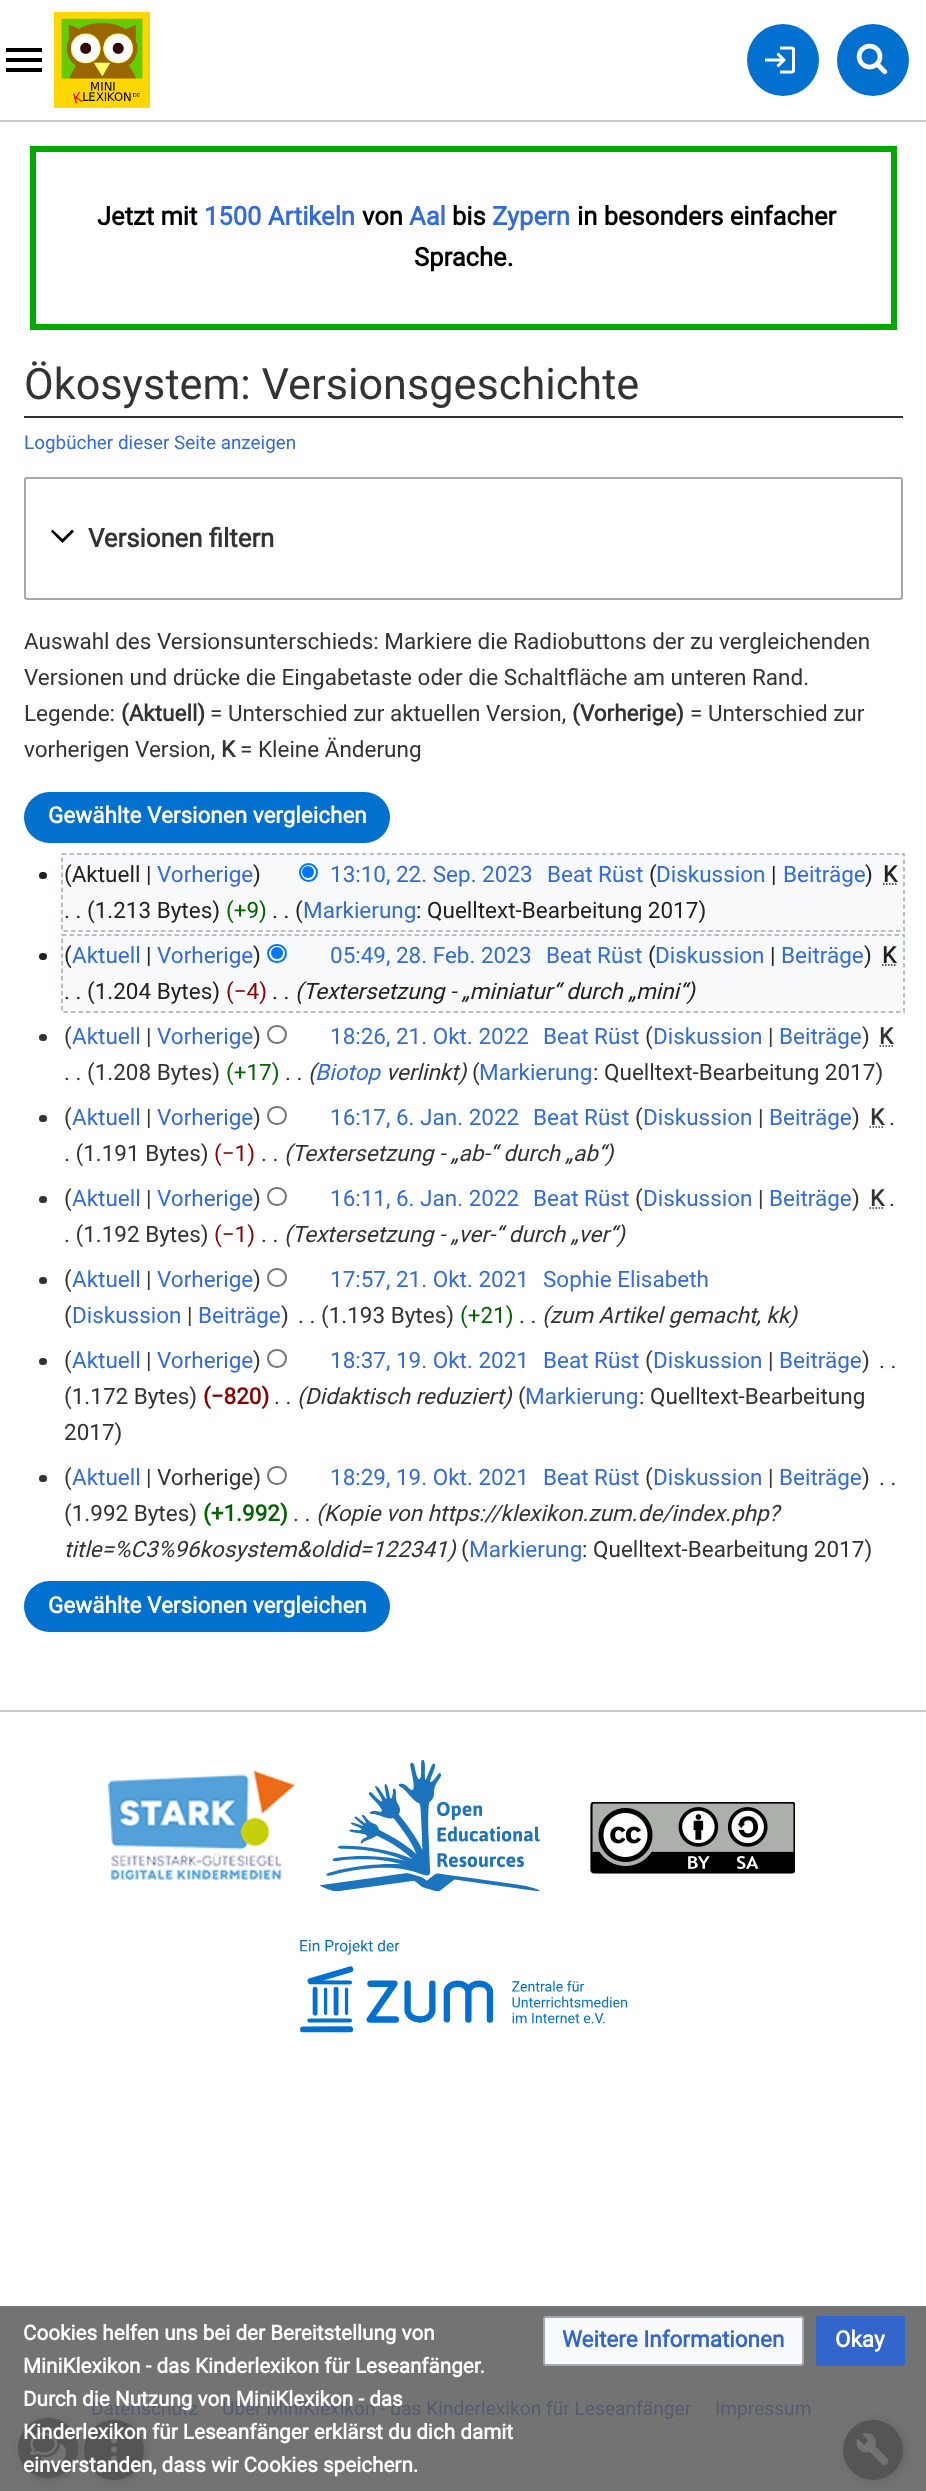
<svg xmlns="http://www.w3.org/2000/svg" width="926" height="2491">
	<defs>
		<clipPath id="clip1"><path d="M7 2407H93V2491H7ZM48 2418C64.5 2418 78 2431.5 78 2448C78 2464.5 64.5 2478 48 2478C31.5 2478 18 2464.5 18 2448C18 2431.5 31.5 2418 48 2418Z" clip-rule="evenodd" /></clipPath>
		<clipPath id="clip2"><path d="M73 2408H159V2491H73ZM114 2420C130.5 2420 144 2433.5 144 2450C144 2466.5 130.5 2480 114 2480C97.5 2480 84 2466.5 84 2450C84 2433.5 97.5 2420 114 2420Z" clip-rule="evenodd" /></clipPath>
		<clipPath id="clip3"><path d="M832 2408H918V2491H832ZM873 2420C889.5 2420 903 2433.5 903 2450C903 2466.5 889.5 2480 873 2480C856.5 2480 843 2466.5 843 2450C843 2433.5 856.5 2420 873 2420Z" clip-rule="evenodd" /></clipPath>
	</defs>
	<rect width="100%" height="100%" fill="#FFFFFF" />
	<rect x="0" y="2306" width="926" height="185" fill="#737373" />
	<image x="54" y="12" width="96" height="96" href="assets/img1.png" />
	<circle cx="783" cy="60" r="36" fill="#0170CE" />
	<image x="765" y="46" width="30" height="28" href="assets/img2.png" />
	<circle cx="873" cy="60" r="36" fill="#0170CE" />
	<image x="856" y="43" width="32" height="32" href="assets/img3.png" />
	<path d="M6 72H42V68H6ZM6 62H42V58H6ZM6 48V52H42V48Z" fill="#000000" />
	<rect x="0" y="120" width="926" height="2" fill="#C8CCD1" />
	<rect x="0" y="1710" width="926" height="2" fill="#C8CCD1" />
	<rect x="33" y="149" width="861" height="178" fill="none" stroke="#00AA00" stroke-width="6" />
	<text x="97" y="225" font-family="Roboto" font-size="25.6" font-weight="700" fill="#000000">Jetzt mit</text>
	<text x="204" y="225" font-family="Roboto" font-size="25.6" font-weight="700" fill="#336BDA">1500 Artikeln</text>
	<text x="362" y="225" font-family="Roboto" font-size="25.6" font-weight="700" fill="#000000">von</text>
	<text x="409" y="225" font-family="Roboto" font-size="25.6" font-weight="700" fill="#336BDA">Aal</text>
	<text x="452" y="225" font-family="Roboto" font-size="25.6" font-weight="700" fill="#000000">bis</text>
	<text x="492" y="225" font-family="Roboto" font-size="25.6" font-weight="700" fill="#336BDA">Zypern</text>
	<g font-family="Roboto" font-size="25.6" font-weight="700" fill="#000000">
		<text x="577" y="225">in besonders einfacher</text>
		<text x="414" y="266">Sprache.</text>
	</g>
	<rect x="24" y="416" width="879" height="2" fill="#333333" />
	<text x="24" y="399" font-family="Roboto" font-size="43.25" fill="#333333">Ökosystem: Versionsgeschichte</text>
	<text x="24" y="449" font-family="Roboto" font-size="18.9" fill="#336BDA">Logbücher dieser Seite anzeigen</text>
	<rect x="25" y="478" width="877" height="121" rx="2" fill="none" stroke="#A2A9B1" stroke-width="2" />
	<path d="M72 529.5L62.5 539L52.5 529.5L51 531.5L62.5 543L74 531.5Z" fill="#000000" />
	<text x="88" y="547" font-family="Roboto" font-size="25.75" font-weight="700" fill="#333333">Versionen filtern</text>
	<g font-family="Roboto" font-size="22.5" fill="#333333">
		<text x="24" y="649">Auswahl des Versionsunterschieds: Markiere die Radiobuttons der zu vergleichenden</text>
		<text x="24" y="685">Versionen und drücke die Eingabetaste oder die Schaltfläche am unteren Rand.</text>
		<text x="24" y="721">Legende:</text>
	</g>
	<text x="121" y="721" font-family="Roboto" font-size="22.5" font-weight="700" fill="#333333">(Aktuell)</text>
	<text x="210" y="721" font-family="Roboto" font-size="22.5" fill="#333333">= Unterschied zur aktuellen Version,</text>
	<text x="572" y="721" font-family="Roboto" font-size="22.5" font-weight="700" fill="#333333">(Vorherige)</text>
	<g font-family="Roboto" font-size="22.5" fill="#333333">
		<text x="690" y="721">= Unterschied zur</text>
		<text x="24" y="757">vorherigen Version,</text>
	</g>
	<text x="221" y="757" font-family="Roboto" font-size="22.5" font-weight="700" fill="#333333">K</text>
	<text x="240" y="757" font-family="Roboto" font-size="22.5" fill="#333333">= Kleine Änderung</text>
	<rect x="24" y="792" width="366" height="51" rx="25.5" fill="#0170CE" />
	<text x="48" y="823" font-family="Roboto" font-size="22.5" font-weight="700" fill="#FFFFFF">Gewählte Versionen vergleichen</text>
	<rect x="63" y="855" width="840" height="75" fill="#F8F9FA" />
	<text x="64" y="882" font-family="Roboto" font-size="22.5" fill="#202122">(Aktuell |</text>
	<text x="157" y="882" font-family="Roboto" font-size="22.5" fill="#336BDA">Vorherige</text>
	<text x="253" y="882" font-family="Roboto" font-size="22.5" fill="#202122">)</text>
	<circle cx="308.5" cy="872.5" r="8.5" fill="#FFFFFF" stroke="#0075FF" stroke-width="2" />
	<circle cx="308" cy="872" r="6" fill="#0075FF" />
	<g font-family="Roboto" font-size="22.5" fill="#336BDA">
		<text x="330" y="882">13:10, 22. Sep. 2023</text>
		<text x="547" y="882">Beat Rüst</text>
	</g>
	<text x="649" y="882" font-family="Roboto" font-size="22.5" fill="#202122">(</text>
	<text x="656" y="882" font-family="Roboto" font-size="22.5" fill="#336BDA">Diskussion</text>
	<text x="771" y="882" font-family="Roboto" font-size="22.5" fill="#202122">|</text>
	<text x="783" y="882" font-family="Roboto" font-size="22.5" fill="#336BDA">Beiträge</text>
	<text x="865" y="882" font-family="Roboto" font-size="22.5" fill="#202122">)</text>
	<text x="883" y="882" font-family="Roboto" font-size="22.5" font-weight="700" fill="#202122">K</text>
	<path d="M883 884H897.5" fill="none" stroke="#202122" stroke-width="1.5" stroke-dasharray="1.5 1.5" />
	<text x="64" y="918" font-family="Roboto" font-size="22.5" fill="#202122">. . (1.213 Bytes)</text>
	<text x="226" y="918" font-family="Roboto" font-size="22.5" fill="#006400">(+9)</text>
	<text x="272" y="918" font-family="Roboto" font-size="22.5" fill="#202122">. . (</text>
	<text x="303" y="918" font-family="Roboto" font-size="22.5" fill="#336BDA">Markierung</text>
	<text x="416" y="918" font-family="Roboto" font-size="22.5" fill="#202122">: Quelltext-Bearbeitung 2017)</text>
	<path d="M62 854H904V931H62Z" fill="none" stroke="#A2A9B1" stroke-width="1.5" stroke-dasharray="4.5 3" />
	<rect x="39" y="872" width="8" height="7" rx="3.5" fill="#202122" />
	<rect x="63" y="936" width="840" height="75" fill="#F8F9FA" />
	<text x="64" y="963" font-family="Roboto" font-size="22.5" fill="#202122">(</text>
	<text x="72" y="963" font-family="Roboto" font-size="22.5" fill="#336BDA">Aktuell</text>
	<text x="146" y="963" font-family="Roboto" font-size="22.5" fill="#202122">|</text>
	<text x="157" y="963" font-family="Roboto" font-size="22.5" fill="#336BDA">Vorherige</text>
	<text x="253" y="963" font-family="Roboto" font-size="22.5" fill="#202122">)</text>
	<rect x="268" y="945" width="18" height="17" rx="8.5" fill="#FFFFFF" stroke="#0075FF" stroke-width="2" />
	<circle cx="277" cy="953" r="6" fill="#0075FF" />
	<g font-family="Roboto" font-size="22.5" fill="#336BDA">
		<text x="330" y="963">05:49, 28. Feb. 2023</text>
		<text x="546" y="963">Beat Rüst</text>
	</g>
	<text x="648" y="963" font-family="Roboto" font-size="22.5" fill="#202122">(</text>
	<text x="655" y="963" font-family="Roboto" font-size="22.5" fill="#336BDA">Diskussion</text>
	<text x="770" y="963" font-family="Roboto" font-size="22.5" fill="#202122">|</text>
	<text x="781" y="963" font-family="Roboto" font-size="22.5" fill="#336BDA">Beiträge</text>
	<text x="864" y="963" font-family="Roboto" font-size="22.5" fill="#202122">)</text>
	<text x="882" y="963" font-family="Roboto" font-size="22.5" font-weight="700" fill="#202122">K</text>
	<path d="M882 965H896" fill="none" stroke="#202122" stroke-width="1.5" stroke-dasharray="1.5 1.5" />
	<text x="64" y="999" font-family="Roboto" font-size="22.5" fill="#202122">. . (1.204 Bytes)</text>
	<text x="226" y="999" font-family="Roboto" font-size="22.5" fill="#8B0000">(−4)</text>
	<text x="272" y="999" font-family="Roboto" font-size="22.5" fill="#202122">. .</text>
	<text x="295" y="999" font-family="Roboto" font-size="22.5" font-style="italic" fill="#202122">(Textersetzung - „miniatur“ durch „mini“)</text>
	<path d="M62 935H904V1012H62Z" fill="none" stroke="#A2A9B1" stroke-width="1.5" stroke-dasharray="4.5 3" />
	<rect x="39" y="953" width="8" height="7" rx="3.5" fill="#202122" />
	<rect x="39" y="1034" width="8" height="7" rx="3.5" fill="#333333" />
	<text x="64" y="1044" font-family="Roboto" font-size="22.5" fill="#333333">(</text>
	<text x="72" y="1044" font-family="Roboto" font-size="22.5" fill="#336BDA">Aktuell</text>
	<text x="146" y="1044" font-family="Roboto" font-size="22.5" fill="#333333">|</text>
	<text x="157" y="1044" font-family="Roboto" font-size="22.5" fill="#336BDA">Vorherige</text>
	<text x="253" y="1044" font-family="Roboto" font-size="22.5" fill="#333333">)</text>
	<rect x="268" y="1026" width="18" height="17" rx="8.5" fill="none" stroke="#767676" stroke-width="2" />
	<g font-family="Roboto" font-size="22.5" fill="#336BDA">
		<text x="330" y="1044">18:26, 21. Okt. 2022</text>
		<text x="543" y="1044">Beat Rüst</text>
	</g>
	<text x="645" y="1044" font-family="Roboto" font-size="22.5" fill="#333333">(</text>
	<text x="653" y="1044" font-family="Roboto" font-size="22.5" fill="#336BDA">Diskussion</text>
	<text x="768" y="1044" font-family="Roboto" font-size="22.5" fill="#333333">|</text>
	<text x="779" y="1044" font-family="Roboto" font-size="22.5" fill="#336BDA">Beiträge</text>
	<text x="862" y="1044" font-family="Roboto" font-size="22.5" fill="#333333">)</text>
	<text x="879" y="1044" font-family="Roboto" font-size="22.5" font-weight="700" fill="#333333">K</text>
	<path d="M879.5 1046H893.5" fill="none" stroke="#333333" stroke-width="1.5" stroke-dasharray="1.5 1.5" />
	<text x="64" y="1080" font-family="Roboto" font-size="22.5" fill="#333333">. . (1.208 Bytes)</text>
	<text x="226" y="1080" font-family="Roboto" font-size="22.5" fill="#006400">(+17)</text>
	<text x="285" y="1080" font-family="Roboto" font-size="22.5" fill="#333333">. .</text>
	<text x="308" y="1080" font-family="Roboto" font-size="22.5" font-style="italic" fill="#333333">(</text>
	<text x="315" y="1080" font-family="Roboto" font-size="22.5" font-style="italic" fill="#336BDA">Biotop</text>
	<text x="386" y="1080" font-family="Roboto" font-size="22.5" font-style="italic" fill="#333333">verlinkt)</text>
	<text x="472" y="1080" font-family="Roboto" font-size="22.5" fill="#333333">(</text>
	<text x="479" y="1080" font-family="Roboto" font-size="22.5" fill="#336BDA">Markierung</text>
	<text x="593" y="1080" font-family="Roboto" font-size="22.5" fill="#333333">: Quelltext-Bearbeitung 2017)</text>
	<rect x="39" y="1115" width="8" height="7" rx="3.5" fill="#333333" />
	<text x="64" y="1125" font-family="Roboto" font-size="22.5" fill="#333333">(</text>
	<text x="72" y="1125" font-family="Roboto" font-size="22.5" fill="#336BDA">Aktuell</text>
	<text x="146" y="1125" font-family="Roboto" font-size="22.5" fill="#333333">|</text>
	<text x="157" y="1125" font-family="Roboto" font-size="22.5" fill="#336BDA">Vorherige</text>
	<text x="253" y="1125" font-family="Roboto" font-size="22.5" fill="#333333">)</text>
	<rect x="268" y="1107" width="18" height="17" rx="8.5" fill="none" stroke="#767676" stroke-width="2" />
	<g font-family="Roboto" font-size="22.5" fill="#336BDA">
		<text x="330" y="1125">16:17, 6. Jan. 2022</text>
		<text x="533" y="1125">Beat Rüst</text>
	</g>
	<text x="635" y="1125" font-family="Roboto" font-size="22.5" fill="#333333">(</text>
	<text x="643" y="1125" font-family="Roboto" font-size="22.5" fill="#336BDA">Diskussion</text>
	<text x="758" y="1125" font-family="Roboto" font-size="22.5" fill="#333333">|</text>
	<text x="769" y="1125" font-family="Roboto" font-size="22.5" fill="#336BDA">Beiträge</text>
	<text x="852" y="1125" font-family="Roboto" font-size="22.5" fill="#333333">)</text>
	<text x="870" y="1125" font-family="Roboto" font-size="22.5" font-weight="700" fill="#333333">K</text>
	<path d="M869.5 1127H884" fill="none" stroke="#333333" stroke-width="1.5" stroke-dasharray="1.5 1.5" />
	<g font-family="Roboto" font-size="22.5" fill="#333333">
		<text x="889" y="1125">.</text>
		<text x="64" y="1161">. (1.191 Bytes)</text>
	</g>
	<text x="214" y="1161" font-family="Roboto" font-size="22.5" fill="#8B0000">(−1)</text>
	<text x="261" y="1161" font-family="Roboto" font-size="22.5" fill="#333333">. .</text>
	<text x="284" y="1161" font-family="Roboto" font-size="22.5" font-style="italic" fill="#333333">(Textersetzung - „ab-“ durch „ab“)</text>
	<rect x="39" y="1196" width="8" height="7" rx="3.5" fill="#333333" />
	<text x="64" y="1206" font-family="Roboto" font-size="22.5" fill="#333333">(</text>
	<text x="72" y="1206" font-family="Roboto" font-size="22.5" fill="#336BDA">Aktuell</text>
	<text x="146" y="1206" font-family="Roboto" font-size="22.5" fill="#333333">|</text>
	<text x="157" y="1206" font-family="Roboto" font-size="22.5" fill="#336BDA">Vorherige</text>
	<text x="253" y="1206" font-family="Roboto" font-size="22.5" fill="#333333">)</text>
	<rect x="268" y="1188" width="18" height="17" rx="8.5" fill="none" stroke="#767676" stroke-width="2" />
	<g font-family="Roboto" font-size="22.5" fill="#336BDA">
		<text x="330" y="1206">16:11, 6. Jan. 2022</text>
		<text x="533" y="1206">Beat Rüst</text>
	</g>
	<text x="635" y="1206" font-family="Roboto" font-size="22.5" fill="#333333">(</text>
	<text x="643" y="1206" font-family="Roboto" font-size="22.5" fill="#336BDA">Diskussion</text>
	<text x="758" y="1206" font-family="Roboto" font-size="22.5" fill="#333333">|</text>
	<text x="769" y="1206" font-family="Roboto" font-size="22.5" fill="#336BDA">Beiträge</text>
	<text x="852" y="1206" font-family="Roboto" font-size="22.5" fill="#333333">)</text>
	<text x="870" y="1206" font-family="Roboto" font-size="22.5" font-weight="700" fill="#333333">K</text>
	<path d="M869.5 1208H884" fill="none" stroke="#333333" stroke-width="1.5" stroke-dasharray="1.5 1.5" />
	<g font-family="Roboto" font-size="22.5" fill="#333333">
		<text x="889" y="1206">.</text>
		<text x="64" y="1242">. (1.192 Bytes)</text>
	</g>
	<text x="214" y="1242" font-family="Roboto" font-size="22.5" fill="#8B0000">(−1)</text>
	<text x="261" y="1242" font-family="Roboto" font-size="22.5" fill="#333333">. .</text>
	<text x="284" y="1242" font-family="Roboto" font-size="22.5" font-style="italic" fill="#333333">(Textersetzung - „ver-“ durch „ver“)</text>
	<text x="64" y="1287" font-family="Roboto" font-size="22.5" fill="#333333">(</text>
	<text x="72" y="1287" font-family="Roboto" font-size="22.5" fill="#336BDA">Aktuell</text>
	<text x="146" y="1287" font-family="Roboto" font-size="22.5" fill="#333333">|</text>
	<text x="157" y="1287" font-family="Roboto" font-size="22.5" fill="#336BDA">Vorherige</text>
	<text x="253" y="1287" font-family="Roboto" font-size="22.5" fill="#333333">)</text>
	<rect x="268" y="1269" width="18" height="17" rx="8.5" fill="none" stroke="#767676" stroke-width="2" />
	<text x="543" y="1287" font-family="Roboto" font-size="22.5" fill="#336BDA">Sophie Elisabeth</text>
	<text x="64" y="1323" font-family="Roboto" font-size="22.5" fill="#333333">(</text>
	<text x="72" y="1323" font-family="Roboto" font-size="22.5" fill="#336BDA">Diskussion</text>
	<text x="187" y="1323" font-family="Roboto" font-size="22.5" fill="#333333">|</text>
	<text x="198" y="1323" font-family="Roboto" font-size="22.5" fill="#336BDA">Beiträge</text>
	<text x="281" y="1323" font-family="Roboto" font-size="22.5" fill="#333333">)</text>
	<rect x="39" y="1277" width="8" height="7" rx="3.5" fill="#333333" />
	<text x="330" y="1287" font-family="Roboto" font-size="22.5" fill="#336BDA">17:57, 21. Okt. 2021</text>
	<text x="298" y="1323" font-family="Roboto" font-size="22.5" fill="#333333">. . (1.193 Bytes)</text>
	<text x="460" y="1323" font-family="Roboto" font-size="22.5" fill="#006400">(+21)</text>
	<text x="519" y="1323" font-family="Roboto" font-size="22.5" fill="#333333">. .</text>
	<text x="542" y="1323" font-family="Roboto" font-size="22.5" font-style="italic" fill="#333333">(zum Artikel gemacht, kk)</text>
	<rect x="39" y="1358" width="8" height="7" rx="3.5" fill="#333333" />
	<text x="64" y="1368" font-family="Roboto" font-size="22.5" fill="#333333">(</text>
	<text x="72" y="1368" font-family="Roboto" font-size="22.5" fill="#336BDA">Aktuell</text>
	<text x="146" y="1368" font-family="Roboto" font-size="22.5" fill="#333333">|</text>
	<text x="157" y="1368" font-family="Roboto" font-size="22.5" fill="#336BDA">Vorherige</text>
	<text x="253" y="1368" font-family="Roboto" font-size="22.5" fill="#333333">)</text>
	<rect x="268" y="1350" width="18" height="17" rx="8.5" fill="none" stroke="#767676" stroke-width="2" />
	<g font-family="Roboto" font-size="22.5" fill="#336BDA">
		<text x="330" y="1368">18:37, 19. Okt. 2021</text>
		<text x="543" y="1368">Beat Rüst</text>
	</g>
	<text x="645" y="1368" font-family="Roboto" font-size="22.5" fill="#333333">(</text>
	<text x="653" y="1368" font-family="Roboto" font-size="22.5" fill="#336BDA">Diskussion</text>
	<text x="768" y="1368" font-family="Roboto" font-size="22.5" fill="#333333">|</text>
	<text x="779" y="1368" font-family="Roboto" font-size="22.5" fill="#336BDA">Beiträge</text>
	<g font-family="Roboto" font-size="22.5" fill="#333333">
		<text x="862" y="1368">)</text>
		<text x="879" y="1368">. .</text>
		<text x="64" y="1404">(1.172 Bytes)</text>
	</g>
	<text x="203" y="1404" font-family="Roboto" font-size="22.5" font-weight="700" fill="#8B0000">(−820)</text>
	<text x="274" y="1404" font-family="Roboto" font-size="22.5" fill="#333333">. .</text>
	<text x="297" y="1404" font-family="Roboto" font-size="22.5" font-style="italic" fill="#333333">(Didaktisch reduziert)</text>
	<text x="518" y="1404" font-family="Roboto" font-size="22.5" fill="#333333">(</text>
	<text x="525" y="1404" font-family="Roboto" font-size="22.5" fill="#336BDA">Markierung</text>
	<g font-family="Roboto" font-size="22.5" fill="#333333">
		<text x="639" y="1404">: Quelltext-Bearbeitung</text>
		<text x="64" y="1440">2017)</text>
	</g>
	<rect x="39" y="1475" width="8" height="7" rx="3.5" fill="#333333" />
	<text x="64" y="1485" font-family="Roboto" font-size="22.5" fill="#333333">(</text>
	<text x="72" y="1485" font-family="Roboto" font-size="22.5" fill="#336BDA">Aktuell</text>
	<text x="146" y="1485" font-family="Roboto" font-size="22.5" fill="#333333">| Vorherige)</text>
	<rect x="268" y="1467" width="18" height="17" rx="8.5" fill="none" stroke="#767676" stroke-width="2" />
	<g font-family="Roboto" font-size="22.5" fill="#336BDA">
		<text x="330" y="1485">18:29, 19. Okt. 2021</text>
		<text x="543" y="1485">Beat Rüst</text>
	</g>
	<text x="645" y="1485" font-family="Roboto" font-size="22.5" fill="#333333">(</text>
	<text x="653" y="1485" font-family="Roboto" font-size="22.5" fill="#336BDA">Diskussion</text>
	<text x="768" y="1485" font-family="Roboto" font-size="22.5" fill="#333333">|</text>
	<text x="779" y="1485" font-family="Roboto" font-size="22.5" fill="#336BDA">Beiträge</text>
	<g font-family="Roboto" font-size="22.5" fill="#333333">
		<text x="862" y="1485">)</text>
		<text x="879" y="1485">. .</text>
		<text x="64" y="1521">(1.992 Bytes)</text>
	</g>
	<text x="203" y="1521" font-family="Roboto" font-size="22.5" font-weight="700" fill="#006400">(+1.992)</text>
	<text x="293" y="1521" font-family="Roboto" font-size="22.5" fill="#333333">. .</text>
	<g font-family="Roboto" font-size="22.5" font-style="italic" fill="#333333">
		<text x="316" y="1521">(Kopie von https://klexikon.zum.de/index.php?</text>
		<text x="64" y="1557">title=%C3%96kosystem&amp;oldid=122341)</text>
	</g>
	<text x="461" y="1557" font-family="Roboto" font-size="22.5" fill="#333333">(</text>
	<text x="469" y="1557" font-family="Roboto" font-size="22.5" fill="#336BDA">Markierung</text>
	<text x="582" y="1557" font-family="Roboto" font-size="22.5" fill="#333333">: Quelltext-Bearbeitung 2017)</text>
	<rect x="24" y="1581" width="366" height="51" rx="25.5" fill="#0170CE" />
	<text x="48" y="1613" font-family="Roboto" font-size="22.5" font-weight="700" fill="#FFFFFF">Gewählte Versionen vergleichen</text>
	<g font-family="Roboto" font-size="20.7" font-weight="700" fill="#FFFFFF">
		<text x="23" y="2340">Cookies helfen uns bei der Bereitstellung von</text>
		<text x="23" y="2373">MiniKlexikon - das Kinderlexikon für Leseanfänger.</text>
	</g>
	<g clip-path="url(#clip1)">
		<rect x="20" y="2420" width="60" height="60" rx="30" fill="#636363" filter="blur(4px)" />
	</g>
	<circle cx="48" cy="2448" r="30" fill="#4D4D4D" fill-opacity="0.8" />
	<g clip-path="url(#clip2)">
		<rect x="86" y="2421" width="60" height="60" rx="30" fill="#636363" filter="blur(4px)" />
	</g>
	<g font-family="Roboto" font-size="19.2" fill="#545D6D">
		<text x="91" y="2415">Datenschutz</text>
		<text x="222" y="2415">Über MiniKlexikon - das Kinderlexikon für Leseanfänger</text>
	</g>
	<text x="23" y="2406" font-family="Roboto" font-size="20.7" font-weight="700" fill="#FFFFFF">Durch die Nutzung von MiniKlexikon - das</text>
	<image x="30" y="2432" width="36" height="32" href="assets/img4.png" />
	<circle cx="114" cy="2450" r="30" fill="#4D4D4D" fill-opacity="0.8" />
	<image x="111" y="2437" width="6" height="25" href="assets/img5.png" />
	<g font-family="Roboto" font-size="20.7" font-weight="700" fill="#FFFFFF">
		<text x="23" y="2439">Kinderlexikon für Leseanfänger erklärst du dich damit</text>
		<text x="23" y="2472">einverstanden, dass wir Cookies speichern.</text>
	</g>
	<rect x="544" y="2317" width="259" height="48" rx="2" fill="#F8F9FA" stroke="#A2A9B1" stroke-width="2" />
	<text x="562" y="2347" font-family="Roboto" font-size="22.5" font-weight="700" fill="#3366CC">Weitere Informationen</text>
	<rect x="817" y="2317" width="87" height="48" rx="2" fill="#3366CC" stroke="#3366CC" stroke-width="2" />
	<text x="835" y="2347" font-family="Roboto" font-size="22.5" font-weight="700" fill="#FFFFFF">Okay</text>
	<g clip-path="url(#clip3)">
		<rect x="845" y="2421" width="60" height="60" rx="30" fill="#636363" filter="blur(4px)" />
	</g>
	<circle cx="873" cy="2450" r="30" fill="#4D4D4D" fill-opacity="0.8" />
	<image x="856" y="2433" width="33" height="32" href="assets/img6.png" />
	<image x="108" y="1770" width="188" height="110" href="assets/img7.png" />
	<image x="320" y="1760" width="220" height="132" href="assets/img8.png" />
	<image x="590" y="1802" width="205" height="72" href="assets/img9.png" />
	<image x="300" y="1940" width="327" height="93" href="assets/img10.png" />
	<text x="715" y="2415" font-family="Roboto" font-size="19.2" fill="#545D6D">Impressum</text>
</svg>
